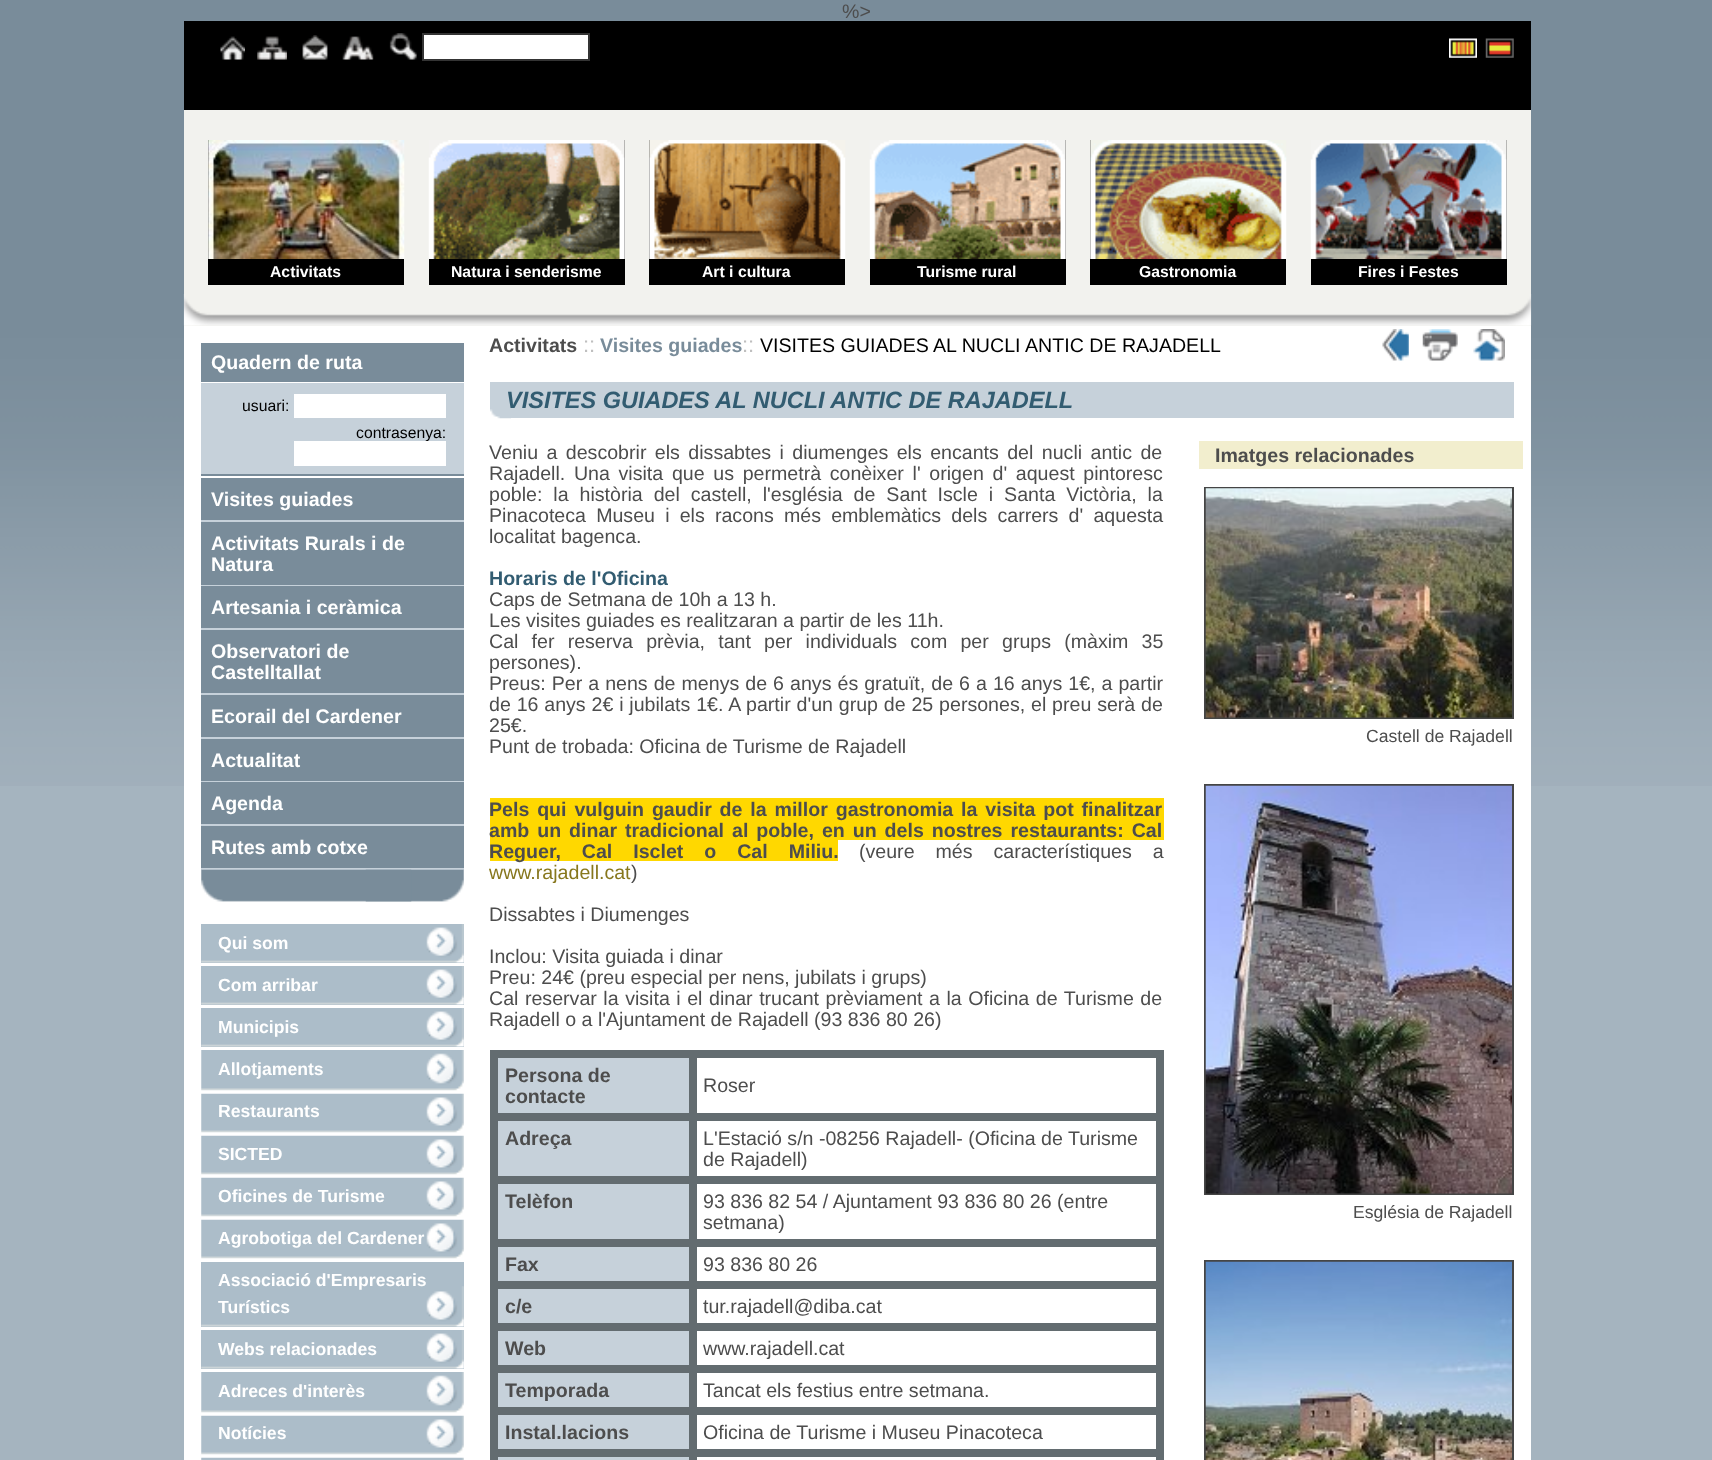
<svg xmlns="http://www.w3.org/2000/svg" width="1712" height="1460">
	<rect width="100%" height="100%" fill="#A5B4BF" />
	<image x="0" y="0" width="1712" height="786" href="assets/img1.png" />
	<text x="842" y="18" font-family="Liberation Sans" font-size="19.6" fill="#4D4D4D">%&gt;</text>
	<rect x="184" y="326" width="1347" height="1134" fill="#FFFFFF" />
	<rect x="184" y="21" width="1347" height="89" fill="#000000" />
	<image x="220" y="36" width="25" height="24" href="assets/img2.png" />
	<image x="257" y="36" width="30" height="24" href="assets/img3.png" />
	<image x="302" y="35" width="26" height="25" href="assets/img4.png" />
	<image x="342" y="36" width="32" height="24" href="assets/img5.png" />
	<image x="389" y="33" width="28" height="27" href="assets/img6.png" />
	<rect x="423" y="34" width="166" height="26" fill="#FFFFFF" stroke="#343434" stroke-width="2" />
	<image x="1449" y="38" width="28" height="20" href="assets/img7.png" />
	<image x="1485" y="38" width="29" height="20" href="assets/img8.png" />
	<rect x="184" y="110" width="1347" height="216" fill="#F2F2EE" />
	<image x="183" y="294" width="1349" height="32" href="assets/img9.png" />
	<rect x="208" y="140" width="196" height="145" fill="#000000" />
	<image x="208" y="140" width="197" height="119" href="assets/img10.png" />
	<text x="270" y="277" font-family="Liberation Sans" font-size="15.75" font-weight="700" fill="#FFFFFF">Activitats</text>
	<rect x="429" y="140" width="196" height="145" fill="#000000" />
	<image x="428" y="140" width="197" height="119" href="assets/img11.png" />
	<text x="451" y="277" font-family="Liberation Sans" font-size="15.75" font-weight="700" fill="#FFFFFF">Natura i senderisme</text>
	<rect x="649" y="140" width="196" height="145" fill="#000000" />
	<image x="649" y="140" width="197" height="119" href="assets/img12.png" />
	<text x="702" y="277" font-family="Liberation Sans" font-size="15.75" font-weight="700" fill="#FFFFFF">Art i cultura</text>
	<rect x="870" y="140" width="196" height="145" fill="#000000" />
	<image x="869" y="140" width="197" height="119" href="assets/img13.png" />
	<text x="917" y="277" font-family="Liberation Sans" font-size="15.75" font-weight="700" fill="#FFFFFF">Turisme rural</text>
	<rect x="1090" y="140" width="196" height="145" fill="#000000" />
	<image x="1090" y="140" width="197" height="119" href="assets/img14.png" />
	<text x="1139" y="277" font-family="Liberation Sans" font-size="15.75" font-weight="700" fill="#FFFFFF">Gastronomia</text>
	<rect x="1311" y="140" width="196" height="145" fill="#000000" />
	<image x="1310" y="140" width="197" height="119" href="assets/img15.png" />
	<text x="1358" y="277" font-family="Liberation Sans" font-size="15.75" font-weight="700" fill="#FFFFFF">Fires i Festes</text>
	<text x="489" y="352" font-family="Liberation Sans" font-size="19.6" font-weight="700" fill="#4D4D4D">Activitats</text>
	<text x="583" y="352" font-family="Liberation Sans" font-size="22" fill="#BFBFBF">::</text>
	<text x="600" y="352" font-family="Liberation Sans" font-size="19.6" font-weight="700" fill="#798C9A">Visites guiades</text>
	<text x="742" y="352" font-family="Liberation Sans" font-size="22" fill="#BFBFBF">::</text>
	<g font-family="Liberation Sans" font-size="19.6" fill="#000000">
		<text x="760" y="352">VISITES GUIADES</text>
		<text x="933" y="352">AL NUCLI</text>
		<text x="1025" y="352">ANTIC DE RAJADELL</text>
	</g>
	<image x="1382" y="329" width="27" height="32" href="assets/img16.png" />
	<image x="1422" y="329" width="36" height="32" href="assets/img17.png" />
	<image x="1473" y="329" width="32" height="32" href="assets/img18.png" />
	<rect x="201" y="343" width="263" height="39" fill="#798C9A" />
	<text x="211" y="369" font-family="Liberation Sans" font-size="19.6" font-weight="700" fill="#FFFFFF">Quadern de ruta</text>
	<rect x="201" y="383" width="263" height="91" fill="#C6D1DA" />
	<rect x="201" y="474" width="263" height="2" fill="#798C9A" />
	<text x="242" y="411" font-family="Liberation Sans" font-size="15.75" fill="#000000">usuari:</text>
	<rect x="294" y="394" width="152" height="24" fill="#FFFFFF" />
	<text x="356" y="438" font-family="Liberation Sans" font-size="15.75" fill="#000000">contrasenya:</text>
	<rect x="294" y="441" width="152" height="25" fill="#FFFFFF" />
	<rect x="201" y="478" width="263" height="42" fill="#798C9A" />
	<rect x="201" y="520" width="263" height="2" fill="#C6D1DA" />
	<text x="211" y="506" font-family="Liberation Sans" font-size="19.6" font-weight="700" fill="#FFFFFF">Visites guiades</text>
	<rect x="201" y="522" width="263" height="63" fill="#798C9A" />
	<rect x="201" y="585" width="263" height="1" fill="#C6D1DA" />
	<g font-family="Liberation Sans" font-size="19.6" font-weight="700" fill="#FFFFFF">
		<text x="211" y="550">Activitats Rurals i de</text>
		<text x="211" y="571">Natura</text>
	</g>
	<rect x="201" y="586" width="263" height="42" fill="#798C9A" />
	<rect x="201" y="628" width="263" height="2" fill="#C6D1DA" />
	<text x="211" y="614" font-family="Liberation Sans" font-size="19.6" font-weight="700" fill="#FFFFFF">Artesania i ceràmica</text>
	<rect x="201" y="630" width="263" height="63" fill="#798C9A" />
	<rect x="201" y="693" width="263" height="2" fill="#C6D1DA" />
	<g font-family="Liberation Sans" font-size="19.6" font-weight="700" fill="#FFFFFF">
		<text x="211" y="658">Observatori de</text>
		<text x="211" y="679">Castelltallat</text>
	</g>
	<rect x="201" y="695" width="263" height="42" fill="#798C9A" />
	<rect x="201" y="737" width="263" height="2" fill="#C6D1DA" />
	<text x="211" y="723" font-family="Liberation Sans" font-size="19.6" font-weight="700" fill="#FFFFFF">Ecorail del Cardener</text>
	<rect x="201" y="739" width="263" height="42" fill="#798C9A" />
	<rect x="201" y="781" width="263" height="1" fill="#C6D1DA" />
	<text x="211" y="767" font-family="Liberation Sans" font-size="19.6" font-weight="700" fill="#FFFFFF">Actualitat</text>
	<rect x="201" y="782" width="263" height="42" fill="#798C9A" />
	<rect x="201" y="824" width="263" height="2" fill="#C6D1DA" />
	<text x="211" y="810" font-family="Liberation Sans" font-size="19.6" font-weight="700" fill="#FFFFFF">Agenda</text>
	<rect x="201" y="826" width="263" height="42" fill="#798C9A" />
	<rect x="201" y="868" width="263" height="2" fill="#C6D1DA" />
	<text x="211" y="854" font-family="Liberation Sans" font-size="19.6" font-weight="700" fill="#FFFFFF">Rutes amb cotxe</text>
	<image x="365" y="869" width="99" height="33" href="assets/img19.png" />
	<image x="201" y="869" width="211" height="33" href="assets/img20.png" />
	<rect x="201" y="924" width="263" height="39" fill="#ACBDC9" />
	<image x="201" y="924" width="263" height="39" href="assets/img21.png" />
	<text x="218" y="949" font-family="Liberation Sans" font-size="17.6" font-weight="700" fill="#FFFFFF">Qui som</text>
	<rect x="201" y="966" width="263" height="39" fill="#ACBDC9" />
	<image x="201" y="966" width="263" height="39" href="assets/img21.png" />
	<text x="218" y="991" font-family="Liberation Sans" font-size="17.6" font-weight="700" fill="#FFFFFF">Com arribar</text>
	<rect x="201" y="1008" width="263" height="39" fill="#ACBDC9" />
	<image x="201" y="1008" width="263" height="39" href="assets/img21.png" />
	<text x="218" y="1033" font-family="Liberation Sans" font-size="17.6" font-weight="700" fill="#FFFFFF">Municipis</text>
	<image x="201" y="1050" width="263" height="41" href="assets/img22.png" />
	<text x="218" y="1075" font-family="Liberation Sans" font-size="17.6" font-weight="700" fill="#FFFFFF">Allotjaments</text>
	<image x="201" y="1093" width="263" height="40" href="assets/img23.png" />
	<text x="218" y="1117" font-family="Liberation Sans" font-size="17.6" font-weight="700" fill="#FFFFFF">Restaurants</text>
	<image x="201" y="1135" width="263" height="40" href="assets/img23.png" />
	<text x="218" y="1160" font-family="Liberation Sans" font-size="17.6" font-weight="700" fill="#FFFFFF">SICTED</text>
	<image x="201" y="1177" width="263" height="40" href="assets/img23.png" />
	<text x="218" y="1202" font-family="Liberation Sans" font-size="17.6" font-weight="700" fill="#FFFFFF">Oficines de Turisme</text>
	<image x="201" y="1219" width="263" height="40" href="assets/img23.png" />
	<text x="218" y="1244" font-family="Liberation Sans" font-size="17.6" font-weight="700" fill="#FFFFFF">Agrobotiga del Cardener</text>
	<rect x="201" y="1262" width="263" height="65" fill="#ACBDC9" />
	<image x="201" y="1286" width="263" height="41" href="assets/img24.png" />
	<g font-family="Liberation Sans" font-size="17.6" font-weight="700" fill="#FFFFFF">
		<text x="218" y="1286">Associació d'Empresaris</text>
		<text x="218" y="1313">Turístics</text>
	</g>
	<rect x="201" y="1330" width="263" height="39" fill="#ACBDC9" />
	<image x="201" y="1330" width="263" height="39" href="assets/img21.png" />
	<text x="218" y="1355" font-family="Liberation Sans" font-size="17.6" font-weight="700" fill="#FFFFFF">Webs relacionades</text>
	<image x="201" y="1372" width="263" height="41" href="assets/img22.png" />
	<text x="218" y="1397" font-family="Liberation Sans" font-size="17.6" font-weight="700" fill="#FFFFFF">Adreces d'interès</text>
	<image x="201" y="1415" width="263" height="40" href="assets/img23.png" />
	<text x="218" y="1439" font-family="Liberation Sans" font-size="17.6" font-weight="700" fill="#FFFFFF">Notícies</text>
	<image x="201" y="1457" width="263" height="3" href="assets/img25.png" />
	<rect x="490" y="382" width="1024" height="36" fill="#C6D1DA" />
	<image x="490" y="409" width="21" height="10" href="assets/img26.png" />
	<text x="506" y="408" font-family="Liberation Sans" font-size="23.5" font-weight="700" font-style="italic" fill="#325C71">VISITES GUIADES AL NUCLI ANTIC DE RAJADELL</text>
	<g font-family="Liberation Sans" font-size="19.6" fill="#4D4D4D">
		<text x="489" y="459" word-spacing="3">Veniu a descobrir els dissabtes i diumenges els encants del nucli antic de</text>
		<text x="489" y="480" word-spacing="3.25">Rajadell. Una visita que us permetrà conèixer l' origen d' aquest pintoresc</text>
		<text x="489" y="501" word-spacing="5.5">poble: la història del castell, l'església de Sant Iscle i Santa Victòria, la</text>
		<text x="489" y="522" word-spacing="4.75">Pinacoteca Museu i els racons més emblemàtics dels carrers d' aquesta</text>
		<text x="489" y="543">localitat bagenca.</text>
	</g>
	<text x="489" y="585" font-family="Liberation Sans" font-size="19.6" font-weight="700" fill="#325C71">Horaris de l'Oficina</text>
	<g font-family="Liberation Sans" font-size="19.6" fill="#4D4D4D">
		<text x="489" y="606">Caps de Setmana de 10h a 13 h.</text>
		<text x="489" y="627">Les visites guiades es realitzaran a partir de les 11h.</text>
		<text x="489" y="648" word-spacing="7.75">Cal fer reserva prèvia, tant per individuals com per grups (màxim 35</text>
		<text x="489" y="669">persones).</text>
		<text x="489" y="690" word-spacing="0.6">Preus: Per a nens de menys de 6 anys és gratuït, de 6 a 16 anys 1€, a partir</text>
		<text x="489" y="711" word-spacing="0.4">de 16 anys 2€ i jubilats 1€. A partir d'un grup de 25 persones, el preu serà de</text>
		<text x="489" y="732">25€.</text>
		<text x="489" y="753">Punt de trobada: Oficina de Turisme de Rajadell</text>
	</g>
	<rect x="490" y="798" width="674" height="42" fill="#FFD800" />
	<text x="489" y="816" word-spacing="2.4" font-family="Liberation Sans" font-size="19.6" font-weight="700" fill="#4D4D4D">Pels qui vulguin gaudir de la millor gastronomia la visita pot finalitzar</text>
	<rect x="490" y="840" width="348" height="21" fill="#FFD800" />
	<g font-family="Liberation Sans" font-size="19.6" font-weight="700" fill="#4D4D4D">
		<text x="489" y="837" word-spacing="2.5">amb un dinar tradicional al poble, en un dels nostres restaurants: Cal</text>
		<text x="489" y="858" word-spacing="15.5">Reguer, Cal Isclet o Cal Miliu.</text>
	</g>
	<text x="859" y="858" word-spacing="15.5" font-family="Liberation Sans" font-size="19.6" fill="#4D4D4D">(veure més característiques a</text>
	<text x="489" y="879" font-family="Liberation Sans" font-size="19.6" fill="#87771D">www.rajadell.cat</text>
	<g font-family="Liberation Sans" font-size="19.6" fill="#4D4D4D">
		<text x="631" y="879">)</text>
		<text x="489" y="921">Dissabtes i Diumenges</text>
		<text x="489" y="963">Inclou: Visita guiada i dinar</text>
		<text x="489" y="984">Preu: 24€ (preu especial per nens, jubilats i grups)</text>
		<text x="489" y="1005" word-spacing="1.1">Cal reservar la visita i el dinar trucant prèviament a la Oficina de Turisme de</text>
		<text x="489" y="1026">Rajadell o a l'Ajuntament de Rajadell (93 836 80 26)</text>
	</g>
	<rect x="492" y="1052" width="670" height="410" fill="none" stroke="#636C70" stroke-width="4" />
	<rect x="496" y="1056" width="195" height="59" fill="#C6D1DA" stroke="#636C70" stroke-width="4" />
	<g font-family="Liberation Sans" font-size="19.6" font-weight="700" fill="#4D4D4D">
		<text x="505" y="1082">Persona de</text>
		<text x="505" y="1103">contacte</text>
	</g>
	<rect x="695" y="1056" width="463" height="59" fill="none" stroke="#636C70" stroke-width="4" />
	<text x="703" y="1092" font-family="Liberation Sans" font-size="19.6" fill="#4D4D4D">Roser</text>
	<rect x="496" y="1119" width="195" height="59" fill="#C6D1DA" stroke="#636C70" stroke-width="4" />
	<text x="505" y="1145" font-family="Liberation Sans" font-size="19.6" font-weight="700" fill="#4D4D4D">Adreça</text>
	<rect x="695" y="1119" width="463" height="59" fill="none" stroke="#636C70" stroke-width="4" />
	<g font-family="Liberation Sans" font-size="19.6" fill="#4D4D4D">
		<text x="703" y="1145">L'Estació s/n -08256 Rajadell- (Oficina de Turisme</text>
		<text x="703" y="1166">de Rajadell)</text>
	</g>
	<rect x="496" y="1182" width="195" height="59" fill="#C6D1DA" stroke="#636C70" stroke-width="4" />
	<text x="505" y="1208" font-family="Liberation Sans" font-size="19.6" font-weight="700" fill="#4D4D4D">Telèfon</text>
	<rect x="695" y="1182" width="463" height="59" fill="none" stroke="#636C70" stroke-width="4" />
	<g font-family="Liberation Sans" font-size="19.6" fill="#4D4D4D">
		<text x="703" y="1208">93 836 82 54 / Ajuntament 93 836 80 26 (entre</text>
		<text x="703" y="1229">setmana)</text>
	</g>
	<rect x="496" y="1245" width="195" height="38" fill="#C6D1DA" stroke="#636C70" stroke-width="4" />
	<text x="505" y="1271" font-family="Liberation Sans" font-size="19.6" font-weight="700" fill="#4D4D4D">Fax</text>
	<rect x="695" y="1245" width="463" height="38" fill="none" stroke="#636C70" stroke-width="4" />
	<text x="703" y="1271" font-family="Liberation Sans" font-size="19.6" fill="#4D4D4D">93 836 80 26</text>
	<rect x="496" y="1287" width="195" height="38" fill="#C6D1DA" stroke="#636C70" stroke-width="4" />
	<text x="505" y="1313" font-family="Liberation Sans" font-size="19.6" font-weight="700" fill="#4D4D4D">c/e</text>
	<rect x="695" y="1287" width="463" height="38" fill="none" stroke="#636C70" stroke-width="4" />
	<text x="703" y="1313" font-family="Liberation Sans" font-size="19.6" fill="#4D4D4D">tur.rajadell@diba.cat</text>
	<rect x="496" y="1329" width="195" height="38" fill="#C6D1DA" stroke="#636C70" stroke-width="4" />
	<text x="505" y="1355" font-family="Liberation Sans" font-size="19.6" font-weight="700" fill="#4D4D4D">Web</text>
	<rect x="695" y="1329" width="463" height="38" fill="none" stroke="#636C70" stroke-width="4" />
	<text x="703" y="1355" font-family="Liberation Sans" font-size="19.6" fill="#4D4D4D">www.rajadell.cat</text>
	<rect x="496" y="1371" width="195" height="38" fill="#C6D1DA" stroke="#636C70" stroke-width="4" />
	<text x="505" y="1397" font-family="Liberation Sans" font-size="19.6" font-weight="700" fill="#4D4D4D">Temporada</text>
	<rect x="695" y="1371" width="463" height="38" fill="none" stroke="#636C70" stroke-width="4" />
	<text x="703" y="1397" font-family="Liberation Sans" font-size="19.6" fill="#4D4D4D">Tancat els festius entre setmana.</text>
	<rect x="496" y="1413" width="195" height="38" fill="#C6D1DA" stroke="#636C70" stroke-width="4" />
	<text x="505" y="1439" font-family="Liberation Sans" font-size="19.6" font-weight="700" fill="#4D4D4D">Instal.lacions</text>
	<rect x="695" y="1413" width="463" height="38" fill="none" stroke="#636C70" stroke-width="4" />
	<text x="703" y="1439" font-family="Liberation Sans" font-size="19.6" fill="#4D4D4D">Oficina de Turisme i Museu Pinacoteca</text>
	<rect x="496" y="1455" width="195" height="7" fill="#C6D1DA" stroke="#636C70" stroke-width="4" />
	<rect x="695" y="1455" width="463" height="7" fill="none" stroke="#636C70" stroke-width="4" />
	<rect x="1199" y="441" width="324" height="28" fill="#F2EECE" />
	<text x="1215" y="462" font-family="Liberation Sans" font-size="19.6" font-weight="700" fill="#4D4D4D">Imatges relacionades</text>
	<rect x="1205" y="488" width="308" height="230" fill="none" stroke="#454545" stroke-width="2" />
	<image x="1205" y="488" width="307" height="230" href="assets/img27.png" />
	<text x="1366" y="742" font-family="Liberation Sans" font-size="17.6" fill="#4D4D4D">Castell de Rajadell</text>
	<rect x="1205" y="785" width="308" height="409" fill="none" stroke="#454545" stroke-width="2" />
	<image x="1205" y="785" width="307" height="409" href="assets/img28.png" />
	<text x="1353" y="1218" font-family="Liberation Sans" font-size="17.6" fill="#4D4D4D">Església de Rajadell</text>
	<rect x="1205" y="1261" width="308" height="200" fill="none" stroke="#454545" stroke-width="2" />
	<image x="1205" y="1261" width="307" height="199" href="assets/img29.png" />
</svg>
